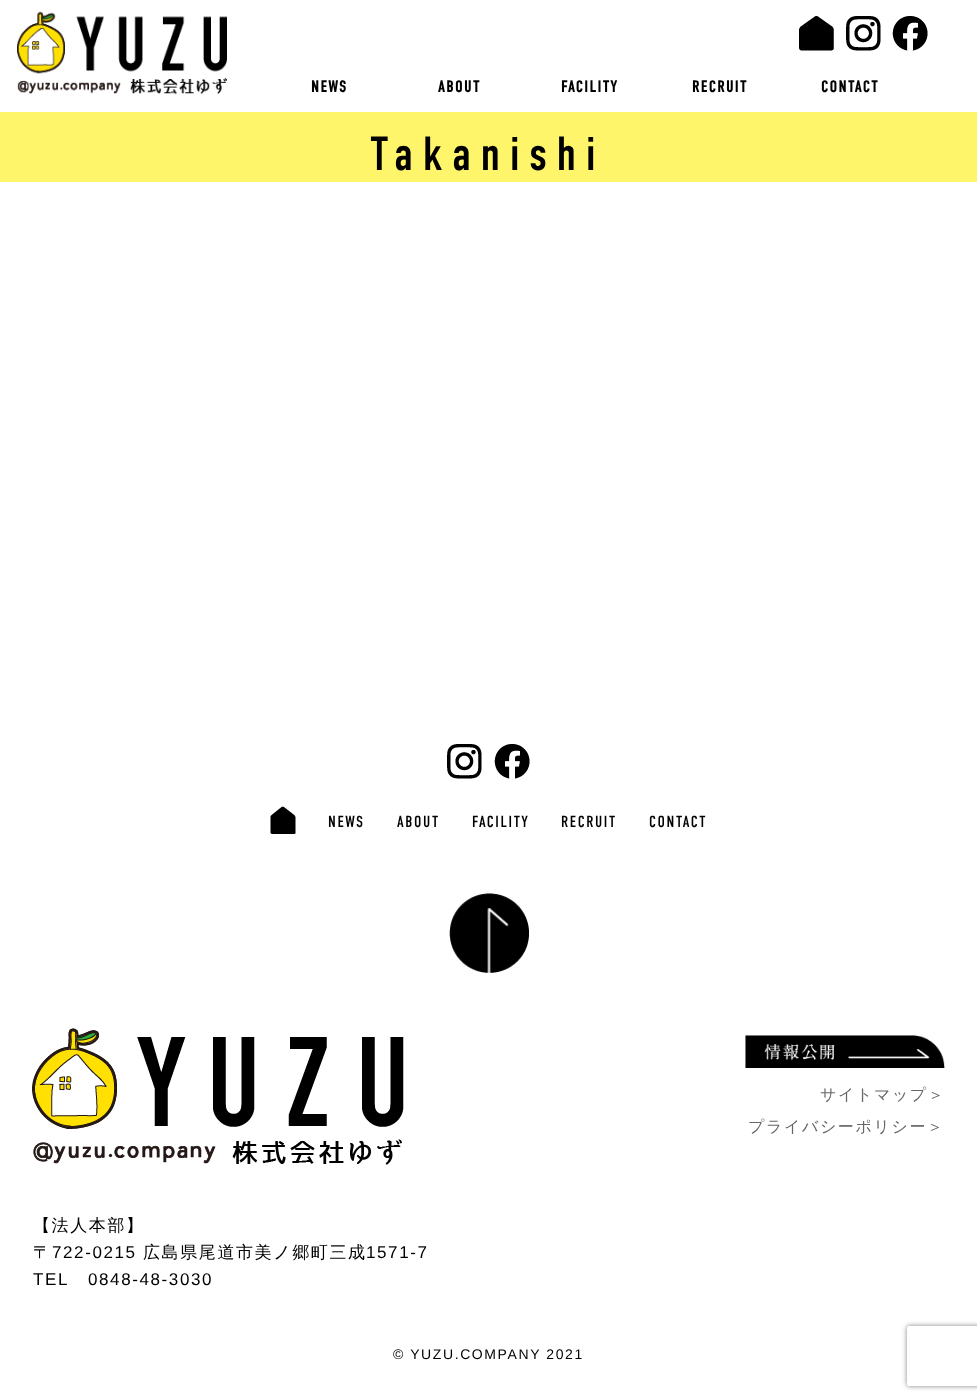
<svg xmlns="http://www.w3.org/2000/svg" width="977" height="1400">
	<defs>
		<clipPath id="clip1"><path d="M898 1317H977V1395H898ZM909 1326H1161C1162 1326 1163 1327 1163 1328V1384C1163 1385 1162 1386 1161 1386H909C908 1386 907 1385 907 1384V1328C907 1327 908 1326 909 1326Z" clip-rule="evenodd" /></clipPath>
	</defs>
	<rect width="100%" height="100%" fill="#FFFFFF" />
	<image x="17" y="11" width="210" height="84" href="assets/img1.png" />
	<image x="799" y="16" width="35" height="35" href="assets/img2.png" />
	<image x="846" y="16" width="35" height="35" href="assets/img3.png" />
	<image x="892" y="16" width="36" height="35" href="assets/img4.png" />
	<g font-family="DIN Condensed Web" font-size="16" font-weight="700" letter-spacing="1.6" fill="#000000">
		<text x="311" y="92">NEWS</text>
		<text x="438" y="92">ABOUT</text>
		<text x="561" y="92">FACILITY</text>
		<text x="692" y="92">RECRUIT</text>
		<text x="821" y="92">CONTACT</text>
	</g>
	<rect x="0" y="112" width="977" height="70" fill="#FFF56B" />
	<text x="370" y="170" font-family="DIN Condensed Web" font-size="48" letter-spacing="9.5" fill="#000000">Takanishi</text>
	<image x="447" y="744" width="35" height="35" href="assets/img3.png" />
	<image x="494" y="744" width="36" height="35" href="assets/img4.png" />
	<image x="270" y="806" width="26" height="28" href="assets/img5.png" />
	<g font-family="DIN Condensed Web" font-size="16" letter-spacing="1.6" fill="#000000">
		<text x="328" y="827">NEWS</text>
		<text x="397" y="827">ABOUT</text>
		<text x="472" y="827">FACILITY</text>
		<text x="561" y="827">RECRUIT</text>
		<text x="649" y="827">CONTACT</text>
	</g>
	<image x="449" y="893" width="80" height="80" href="assets/img6.png" />
	<image x="32" y="1028" width="372" height="137" href="assets/img7.png" />
	<image x="745" y="1035" width="200" height="33" href="assets/img8.png" />
	<g font-family="WenQuanYi Zen Hei" font-size="16" font-weight="500" letter-spacing="1.6" fill="#666666">
		<text x="820" y="1100">サイトマップ＞</text>
		<text x="748" y="1132">プライバシーポリシー＞</text>
	</g>
	<g font-family="WenQuanYi Zen Hei" font-size="17" font-weight="500" letter-spacing="1.6" fill="#000000">
		<text x="33" y="1231">【法人本部】</text>
		<text x="33" y="1258">〒</text>
	</g>
	<text x="52" y="1258" font-family="Liberation Sans" font-size="17" letter-spacing="1.6" fill="#000000">722-0215</text>
	<text x="143" y="1258" font-family="WenQuanYi Zen Hei" font-size="17" font-weight="500" letter-spacing="1.6" fill="#000000">広島県尾道市美ノ郷町三成</text>
	<g font-family="Liberation Sans" font-size="17" letter-spacing="1.6" fill="#000000">
		<text x="366" y="1258">1571-7</text>
		<text x="33" y="1285">TEL</text>
		<text x="88" y="1285">0848-48-3030</text>
	</g>
	<text x="393" y="1359" font-family="Liberation Sans" font-size="14" letter-spacing="1.6" fill="#000000">© YUZU.COMPANY 2021</text>
	<g clip-path="url(#clip1)">
		<rect x="907" y="1326" width="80" height="60" rx="2" fill="#808080" filter="blur(2.5px)" />
	</g>
</svg>
